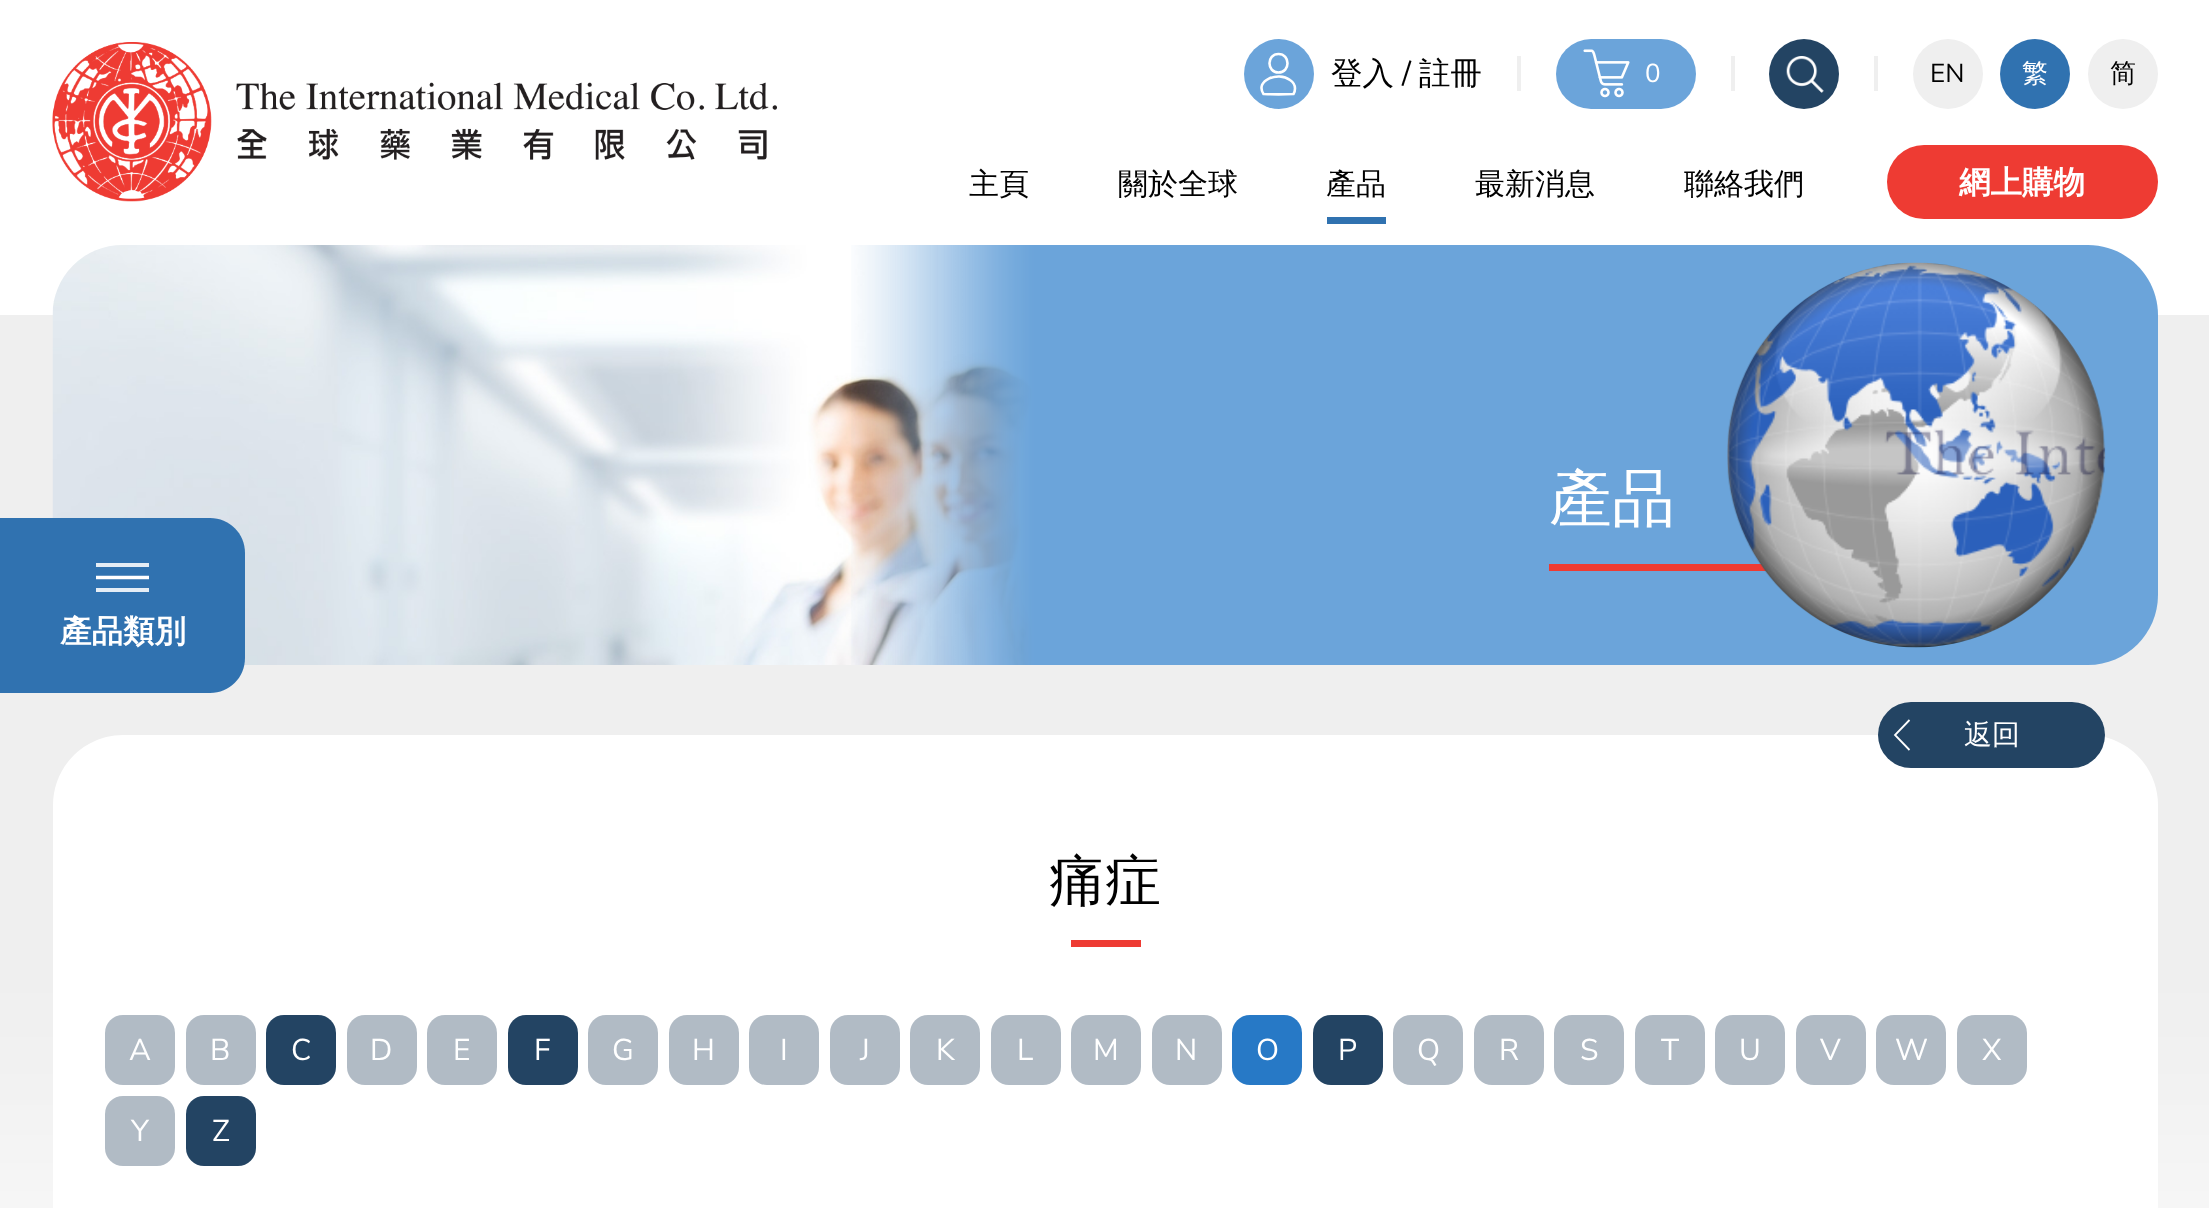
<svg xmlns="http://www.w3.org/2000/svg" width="2209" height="1208">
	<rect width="100%" height="100%" fill="#FFFFFF" />
	<image x="52" y="42" width="725" height="160" href="assets/img1.png" />
	<circle cx="1279" cy="74" r="35" fill="#6BA4DA" />
	<path d="M1278.5 54C1290.5 54 1290.5 72.5 1278.5 72.5C1266.5 72.5 1266.5 54 1278.5 54M1295 88.5C1295 85 1293 82 1290 80C1278 71 1254.5 80.5 1263.5 94C1273.5 94.5 1283.5 94.5 1293.5 94C1294.5 92.5 1295 90.5 1295 88.5" fill="none" stroke="#FFFFFF" stroke-width="2.6" />
	<text x="1331" y="84" font-family="WenQuanYi Zen Hei" font-size="31.5" font-weight="500" fill="#000000">登入</text>
	<text x="1402" y="84" font-family="Nunito Sans" font-size="31.5" fill="#000000">/</text>
	<text x="1419" y="84" font-family="WenQuanYi Zen Hei" font-size="31.5" font-weight="500" fill="#000000">註冊</text>
	<rect x="1517" y="56" width="4" height="35" fill="#EFEFEF" />
	<rect x="1556" y="39" width="140" height="70" rx="35" fill="#6BA4DA" />
	<image x="1583" y="49" width="47" height="49" href="assets/img2.png" />
	<text x="1645" y="82" font-family="Nunito Sans" font-size="26" fill="#FFFFFF">0</text>
	<rect x="1731" y="56" width="4" height="35" fill="#EFEFEF" />
	<circle cx="1804" cy="74" r="35" fill="#234463" />
	<image x="1786" y="56" width="38" height="37" href="assets/img3.png" />
	<rect x="1874" y="56" width="4" height="35" fill="#EFEFEF" />
	<circle cx="1948" cy="74" r="35" fill="#EFEFEF" />
	<text x="1930" y="82" font-family="Nunito Sans" font-size="26" fill="#000000">EN</text>
	<circle cx="2035" cy="74" r="35" fill="#3072B0" />
	<text x="2022" y="82" font-family="WenQuanYi Zen Hei" font-size="26" font-weight="500" fill="#FFFFFF">繁</text>
	<circle cx="2123" cy="74" r="35" fill="#EFEFEF" />
	<text x="2110" y="82" font-family="WenQuanYi Zen Hei" font-size="26" font-weight="500" fill="#000000">简</text>
	<g font-family="WenQuanYi Zen Hei" font-size="30" font-weight="500" fill="#000000">
		<text x="969" y="194">主頁</text>
		<text x="1118" y="194">關於全球</text>
		<text x="1326" y="194">產品</text>
	</g>
	<rect x="1327" y="217" width="59" height="7" fill="#3072B0" />
	<g font-family="WenQuanYi Zen Hei" font-size="30" font-weight="500" fill="#000000">
		<text x="1475" y="194">最新消息</text>
		<text x="1684" y="194">聯絡我們</text>
	</g>
	<rect x="1887" y="145" width="271" height="74" rx="37" fill="#EE3B33" />
	<text x="1959" y="193" font-family="WenQuanYi Zen Hei" font-size="31.5" font-weight="700" fill="#FFFFFF">網上購物</text>
	<image x="0" y="315" width="2209" height="893" href="assets/img4.png" />
	<image x="52" y="245" width="980" height="420" href="assets/img5.png" />
	<path d="M1038 245H2088C2126.5 245 2158 276.5 2158 315V595C2158 633.5 2126.5 665 2088 665H1038Z" fill="#6BA4DA" />
	<image x="851" y="245" width="187" height="420" href="assets/img6.png" />
	<text x="1549" y="520" font-family="WenQuanYi Zen Hei" font-size="63" font-weight="500" fill="#FFFFFF">產品</text>
	<rect x="1549" y="564" width="217" height="7" fill="#EE3B33" />
	<image x="1727" y="262" width="379" height="386" href="assets/img7.png" />
	<path d="M0 518H210C229.5 518 245 533.5 245 553V658C245 677.5 229.5 693 210 693H0Z" fill="#3072B0" />
	<path d="M96 577.5H149" fill="none" stroke="#FFFFFF" stroke-width="3.5" />
	<rect x="96" y="588" width="53" height="4" fill="#E5EDF5" />
	<rect x="96" y="563" width="53" height="4" fill="#E5EDF5" />
	<text x="60" y="642" font-family="WenQuanYi Zen Hei" font-size="31.5" font-weight="700" fill="#FFFFFF">產品類別</text>
	<path d="M123 735H2088C2126.5 735 2158 766.5 2158 805V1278H53V805C53 766.5 84.5 735 123 735Z" fill="#FFFFFF" />
	<rect x="1878" y="702" width="227" height="66" rx="33" fill="#234463" />
	<path d="M1909.5 720L1895 735L1909.5 750" fill="none" stroke="#FFFFFF" stroke-width="1.8" />
	<text x="1964" y="744" font-family="WenQuanYi Zen Hei" font-size="28" font-weight="500" fill="#FFFFFF">返回</text>
	<text x="1049" y="900" font-family="WenQuanYi Zen Hei" font-size="56" font-weight="500" fill="#000000">痛症</text>
	<rect x="1071" y="940" width="70" height="7" fill="#EE3B33" />
	<rect x="105" y="1015" width="70" height="70" rx="18" fill="#B1BBC5" />
	<text x="129" y="1060" font-family="Nunito Sans" font-size="30" fill="#FFFFFF">A</text>
	<rect x="186" y="1015" width="70" height="70" rx="18" fill="#B1BBC5" />
	<text x="210" y="1060" font-family="Nunito Sans" font-size="30" fill="#FFFFFF">B</text>
	<rect x="266" y="1015" width="70" height="70" rx="18" fill="#234463" />
	<text x="291" y="1060" font-family="Nunito Sans" font-size="30" fill="#FFFFFF">C</text>
	<rect x="347" y="1015" width="70" height="70" rx="18" fill="#B1BBC5" />
	<text x="370" y="1060" font-family="Nunito Sans" font-size="30" fill="#FFFFFF">D</text>
	<rect x="427" y="1015" width="70" height="70" rx="18" fill="#B1BBC5" />
	<text x="453" y="1060" font-family="Nunito Sans" font-size="30" fill="#FFFFFF">E</text>
	<rect x="508" y="1015" width="70" height="70" rx="18" fill="#234463" />
	<text x="534" y="1060" font-family="Nunito Sans" font-size="30" fill="#FFFFFF">F</text>
	<rect x="588" y="1015" width="70" height="70" rx="18" fill="#B1BBC5" />
	<text x="612" y="1060" font-family="Nunito Sans" font-size="30" fill="#FFFFFF">G</text>
	<rect x="669" y="1015" width="70" height="70" rx="18" fill="#B1BBC5" />
	<text x="692" y="1060" font-family="Nunito Sans" font-size="30" fill="#FFFFFF">H</text>
	<rect x="749" y="1015" width="70" height="70" rx="18" fill="#B1BBC5" />
	<text x="780" y="1060" font-family="Nunito Sans" font-size="30" fill="#FFFFFF">I</text>
	<rect x="830" y="1015" width="70" height="70" rx="18" fill="#B1BBC5" />
	<text x="860" y="1060" font-family="Nunito Sans" font-size="30" fill="#FFFFFF">J</text>
	<rect x="910" y="1015" width="70" height="70" rx="18" fill="#B1BBC5" />
	<text x="936" y="1060" font-family="Nunito Sans" font-size="30" fill="#FFFFFF">K</text>
	<rect x="991" y="1015" width="70" height="70" rx="18" fill="#B1BBC5" />
	<text x="1017" y="1060" font-family="Nunito Sans" font-size="30" fill="#FFFFFF">L</text>
	<rect x="1071" y="1015" width="70" height="70" rx="18" fill="#B1BBC5" />
	<text x="1093" y="1060" font-family="Nunito Sans" font-size="30" fill="#FFFFFF">M</text>
	<rect x="1152" y="1015" width="70" height="70" rx="18" fill="#B1BBC5" />
	<text x="1175" y="1060" font-family="Nunito Sans" font-size="30" fill="#FFFFFF">N</text>
	<rect x="1232" y="1015" width="70" height="70" rx="18" fill="#2779C6" />
	<text x="1256" y="1060" font-family="Nunito Sans" font-size="30" fill="#FFFFFF">O</text>
	<rect x="1313" y="1015" width="70" height="70" rx="18" fill="#234463" />
	<text x="1338" y="1060" font-family="Nunito Sans" font-size="30" fill="#FFFFFF">P</text>
	<rect x="1393" y="1015" width="70" height="70" rx="18" fill="#B1BBC5" />
	<text x="1417" y="1060" font-family="Nunito Sans" font-size="30" fill="#FFFFFF">Q</text>
	<rect x="1474" y="1015" width="70" height="70" rx="18" fill="#B1BBC5" />
	<text x="1499" y="1060" font-family="Nunito Sans" font-size="30" fill="#FFFFFF">R</text>
	<rect x="1554" y="1015" width="70" height="70" rx="18" fill="#B1BBC5" />
	<text x="1580" y="1060" font-family="Nunito Sans" font-size="30" fill="#FFFFFF">S</text>
	<rect x="1635" y="1015" width="70" height="70" rx="18" fill="#B1BBC5" />
	<text x="1661" y="1060" font-family="Nunito Sans" font-size="30" fill="#FFFFFF">T</text>
	<rect x="1715" y="1015" width="70" height="70" rx="18" fill="#B1BBC5" />
	<text x="1739" y="1060" font-family="Nunito Sans" font-size="30" fill="#FFFFFF">U</text>
	<rect x="1796" y="1015" width="70" height="70" rx="18" fill="#B1BBC5" />
	<text x="1820" y="1060" font-family="Nunito Sans" font-size="30" fill="#FFFFFF">V</text>
	<rect x="1876" y="1015" width="70" height="70" rx="18" fill="#B1BBC5" />
	<text x="1895" y="1060" font-family="Nunito Sans" font-size="30" fill="#FFFFFF">W</text>
	<rect x="1957" y="1015" width="70" height="70" rx="18" fill="#B1BBC5" />
	<text x="1982" y="1060" font-family="Nunito Sans" font-size="30" fill="#FFFFFF">X</text>
	<rect x="105" y="1096" width="70" height="70" rx="18" fill="#B1BBC5" />
	<text x="131" y="1141" font-family="Nunito Sans" font-size="30" fill="#FFFFFF">Y</text>
	<rect x="186" y="1096" width="70" height="70" rx="18" fill="#234463" />
	<text x="212" y="1141" font-family="Nunito Sans" font-size="30" fill="#FFFFFF">Z</text>
</svg>
